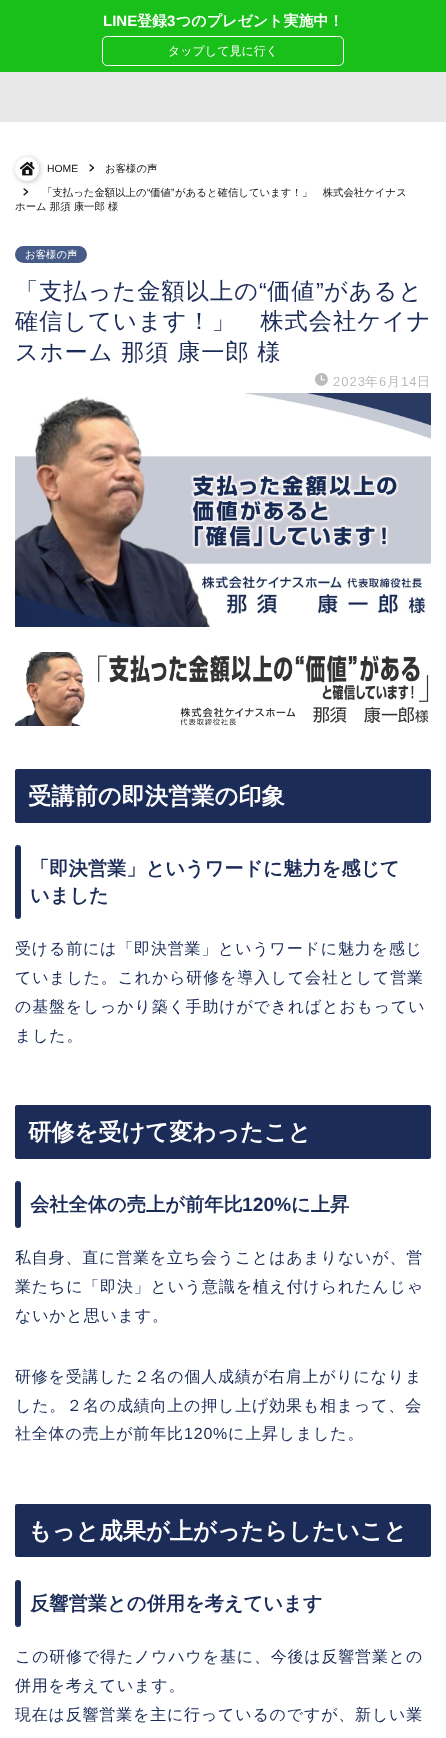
<svg xmlns="http://www.w3.org/2000/svg" width="446" height="1738">
	<defs>
		<clipPath id="clip1"><path d="M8 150H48V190H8ZM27 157C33.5 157 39 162.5 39 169C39 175.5 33.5 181 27 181C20.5 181 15 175.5 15 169C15 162.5 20.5 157 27 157Z" clip-rule="evenodd" /></clipPath>
	</defs>
	<rect width="100%" height="100%" fill="#FFFFFF" />
	<rect x="0" y="0" width="446" height="72" fill="#1AC01A" />
	<text x="103" y="26" font-family="Liberation Sans" font-size="15" font-weight="700" fill="#FFFFFF">LINE</text>
	<text x="137" y="26" font-family="WenQuanYi Zen Hei" font-size="15" font-weight="700" fill="#FFFFFF">登録</text>
	<text x="167" y="26" font-family="Liberation Sans" font-size="15" font-weight="700" fill="#FFFFFF">3</text>
	<text x="176" y="26" font-family="WenQuanYi Zen Hei" font-size="15" font-weight="700" fill="#FFFFFF">つのプレゼント実施中！</text>
	<rect x="102.5" y="36.5" width="241" height="29" rx="4.5" fill="none" stroke="#FFFFFF" />
	<text x="168" y="55" font-family="WenQuanYi Zen Hei" font-size="12" font-weight="500" fill="#FFFFFF">タップして見に行く</text>
	<rect x="0" y="72" width="446" height="50" fill="#E8E8E8" />
	<g clip-path="url(#clip1)">
		<rect x="15" y="157" width="26" height="26" rx="13" fill="#969285" fill-opacity="0.4" filter="blur(2px)" />
	</g>
	<image x="20" y="161" width="15" height="15" href="assets/img1.png" />
	<text x="47" y="172" font-family="Liberation Sans" font-size="10.4" fill="#111111">HOME</text>
	<image x="89" y="164" width="6" height="8" href="assets/img2.png" />
	<text x="105" y="172" font-family="WenQuanYi Zen Hei" font-size="10.4" font-weight="500" fill="#111111">お客様の声</text>
	<image x="23" y="188" width="6" height="8" href="assets/img3.png" />
	<text x="42" y="196" font-family="WenQuanYi Zen Hei" font-size="10.4" font-weight="500" fill="#111111">「支払った金額以上の</text>
	<text x="147" y="196" font-family="Liberation Sans" font-size="10.4" fill="#111111">“</text>
	<text x="150" y="196" font-family="WenQuanYi Zen Hei" font-size="10.4" font-weight="500" fill="#111111">価値</text>
	<text x="171" y="196" font-family="Liberation Sans" font-size="10.4" fill="#111111">”</text>
	<g font-family="WenQuanYi Zen Hei" font-size="10.4" font-weight="500" fill="#111111">
		<text x="175" y="196">があると確信しています！」　株式会社ケイナス</text>
		<text x="15" y="210">ホーム 那須 康一郎 様</text>
	</g>
	<rect x="15" y="246" width="72" height="17" rx="8.5" fill="#465B87" />
	<text x="25" y="258" font-family="WenQuanYi Zen Hei" font-size="10.4" font-weight="500" fill="#FFFFFF">お客様の声</text>
	<text x="15" y="299" font-family="WenQuanYi Zen Hei" font-size="23.25" font-weight="500" letter-spacing="1" fill="#1C2C58">「支払った金額以上の</text>
	<text x="259" y="299" font-family="Liberation Sans" font-size="23.25" letter-spacing="1" fill="#1C2C58">“</text>
	<text x="267" y="299" font-family="WenQuanYi Zen Hei" font-size="23.25" font-weight="500" letter-spacing="1" fill="#1C2C58">価値</text>
	<text x="316" y="299" font-family="Liberation Sans" font-size="23.25" letter-spacing="1" fill="#1C2C58">”</text>
	<g font-family="WenQuanYi Zen Hei" font-size="23.25" font-weight="500" letter-spacing="1" fill="#1C2C58">
		<text x="324" y="299">があると</text>
		<text x="15" y="329">確信しています！」　株式会社ケイナ</text>
		<text x="15" y="360" word-spacing="-0.5">スホーム 那須 康一郎 様</text>
	</g>
	<image x="315" y="373" width="13" height="13" href="assets/img4.png" />
	<text x="333" y="386" font-family="Liberation Sans" font-size="13" letter-spacing="1" fill="#BBBBBB">2023</text>
	<text x="365" y="386" font-family="WenQuanYi Zen Hei" font-size="13" font-weight="500" letter-spacing="1" fill="#BBBBBB">年</text>
	<text x="379" y="386" font-family="Liberation Sans" font-size="13" letter-spacing="1" fill="#BBBBBB">6</text>
	<text x="387" y="386" font-family="WenQuanYi Zen Hei" font-size="13" font-weight="500" letter-spacing="1" fill="#BBBBBB">月</text>
	<text x="401" y="386" font-family="Liberation Sans" font-size="13" letter-spacing="1" fill="#BBBBBB">14</text>
	<text x="417" y="386" font-family="WenQuanYi Zen Hei" font-size="13" font-weight="500" letter-spacing="1" fill="#BBBBBB">日</text>
	<image x="15" y="393" width="416" height="234" href="assets/img5.png" />
	<image x="15" y="652" width="414" height="74" href="assets/img6.png" />
	<rect x="15" y="769" width="416" height="54" rx="2" fill="#1C2C58" />
	<text x="28" y="804" font-family="WenQuanYi Zen Hei" font-size="23.25" font-weight="700" fill="#FFFFFF">受講前の即決営業の印象</text>
	<rect x="15" y="845" width="6" height="74" rx="3" fill="#1C2C58" />
	<g font-family="WenQuanYi Zen Hei" font-size="19.25" font-weight="700" fill="#1C2C58">
		<text x="30" y="875">「即決営業」というワードに魅力を感じて</text>
		<text x="30" y="902">いました</text>
	</g>
	<g font-family="WenQuanYi Zen Hei" font-size="16" font-weight="500" letter-spacing="0.8" fill="#1C2C58">
		<text x="15" y="954">受ける前には「即決営業」というワードに魅力を感じ</text>
		<text x="15" y="983">ていました。これから研修を導入して会社として営業</text>
		<text x="15" y="1012">の基盤をしっかり築く手助けができればとおもってい</text>
		<text x="15" y="1041">ました。</text>
	</g>
	<rect x="15" y="1105" width="416" height="54" rx="2" fill="#1C2C58" />
	<text x="28" y="1140" font-family="WenQuanYi Zen Hei" font-size="23.25" font-weight="700" fill="#FFFFFF">研修を受けて変わったこと</text>
	<rect x="15" y="1181" width="6" height="47" rx="3" fill="#1C2C58" />
	<text x="30" y="1211" font-family="WenQuanYi Zen Hei" font-size="19.25" font-weight="700" fill="#1C2C58">会社全体の売上が前年比</text>
	<text x="242" y="1211" font-family="Liberation Sans" font-size="19.25" font-weight="700" fill="#1C2C58">120%</text>
	<text x="291" y="1211" font-family="WenQuanYi Zen Hei" font-size="19.25" font-weight="700" fill="#1C2C58">に上昇</text>
	<g font-family="WenQuanYi Zen Hei" font-size="16" font-weight="500" letter-spacing="0.8" fill="#1C2C58">
		<text x="15" y="1263">私自身、直に営業を立ち会うことはあまりないが、営</text>
		<text x="15" y="1292">業たちに「即決」という意識を植え付けられたんじゃ</text>
		<text x="15" y="1321">ないかと思います。</text>
		<text x="15" y="1382">研修を受講した２名の個人成績が右肩上がりになりま</text>
		<text x="15" y="1411">した。２名の成績向上の押し上げ効果も相まって、会</text>
		<text x="15" y="1439">社全体の売上が前年比</text>
	</g>
	<text x="184" y="1439" font-family="Liberation Sans" font-size="16" letter-spacing="0.8" fill="#1C2C58">120%</text>
	<text x="228" y="1439" font-family="WenQuanYi Zen Hei" font-size="16" font-weight="500" letter-spacing="0.8" fill="#1C2C58">に上昇しました。</text>
	<rect x="15" y="1504" width="416" height="53" rx="2" fill="#1C2C58" />
	<text x="28" y="1539" font-family="WenQuanYi Zen Hei" font-size="23.25" font-weight="700" fill="#FFFFFF">もっと成果が上がったらしたいこと</text>
	<rect x="15" y="1580" width="6" height="47" rx="3" fill="#1C2C58" />
	<text x="30" y="1610" font-family="WenQuanYi Zen Hei" font-size="19.25" font-weight="700" fill="#1C2C58">反響営業との併用を考えています</text>
	<g font-family="WenQuanYi Zen Hei" font-size="16" font-weight="500" letter-spacing="0.8" fill="#1C2C58">
		<text x="15" y="1662">この研修で得たノウハウを基に、今後は反響営業との</text>
		<text x="15" y="1691">併用を考えています。</text>
		<text x="15" y="1720">現在は反響営業を主に行っているのですが、新しい業</text>
	</g>
</svg>
